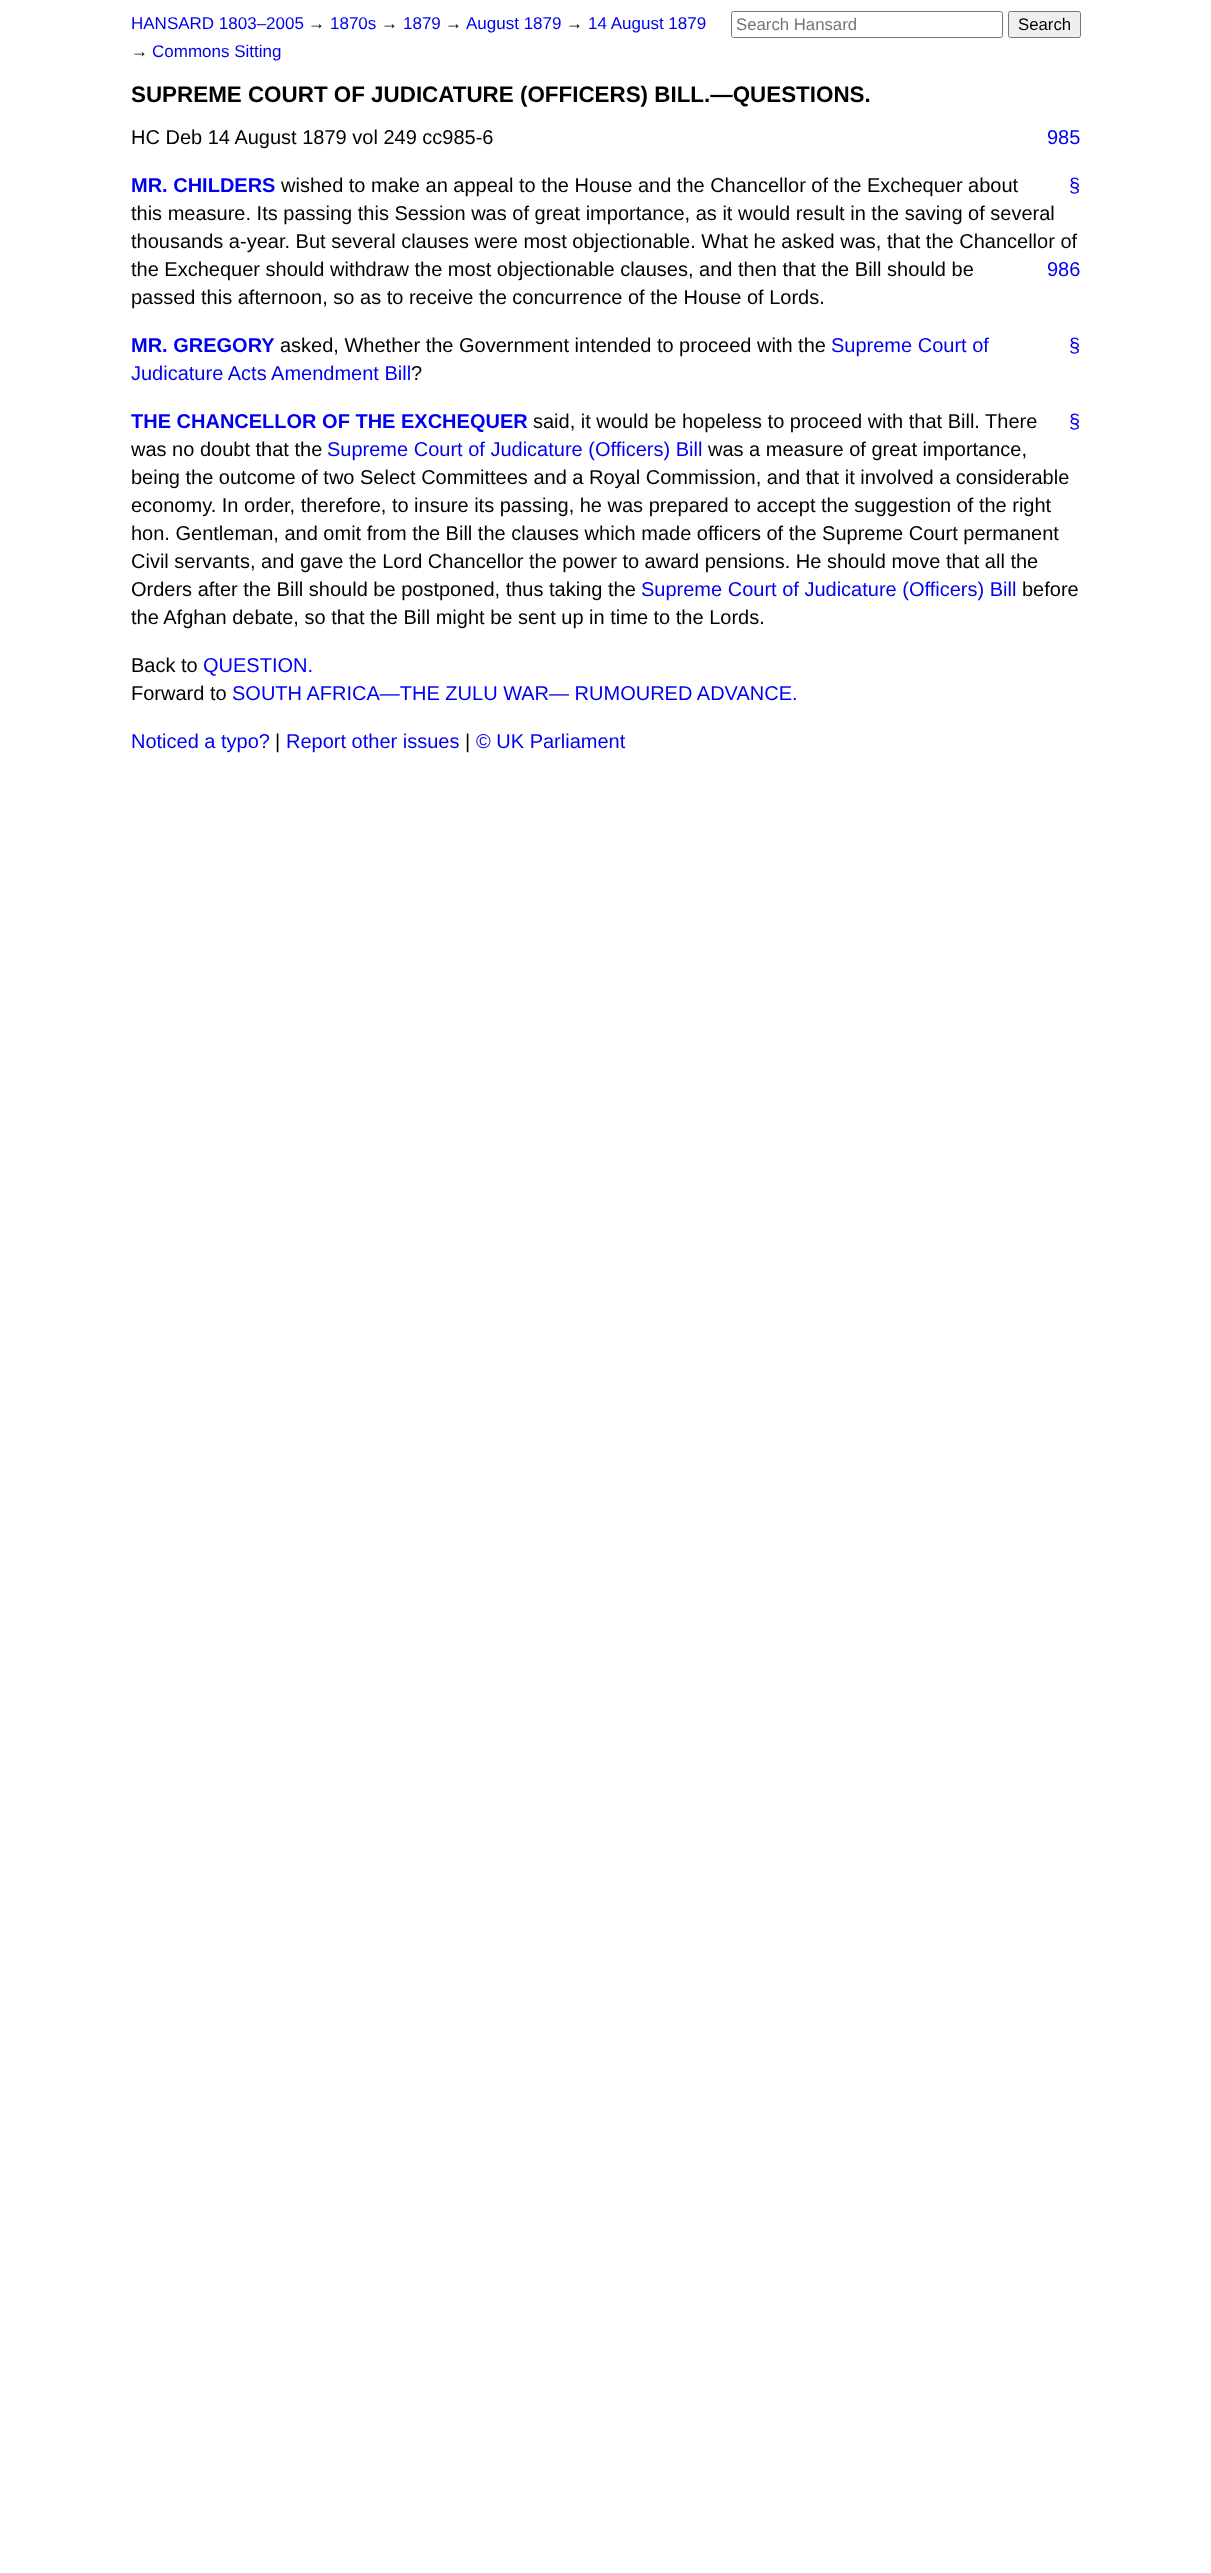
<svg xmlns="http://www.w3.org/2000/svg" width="1211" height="2573">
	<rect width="100%" height="100%" fill="#FFFFFF" />
	<text x="131" y="29" font-family="Liberation Sans" font-size="17" fill="#0000EE">HANSARD 1803–2005</text>
	<text x="308" y="29" font-family="Liberation Sans" font-size="17" fill="#000000">→</text>
	<text x="330" y="29" font-family="Liberation Sans" font-size="17" fill="#0000EE">1870s</text>
	<text x="381" y="29" font-family="Liberation Sans" font-size="17" fill="#000000">→</text>
	<text x="403" y="29" font-family="Liberation Sans" font-size="17" fill="#0000EE">1879</text>
	<text x="445" y="29" font-family="Liberation Sans" font-size="17" fill="#000000">→</text>
	<text x="466" y="29" font-family="Liberation Sans" font-size="17" fill="#0000EE">August 1879</text>
	<text x="566" y="29" font-family="Liberation Sans" font-size="17" fill="#000000">→</text>
	<text x="588" y="29" font-family="Liberation Sans" font-size="17" fill="#0000EE">14 August 1879</text>
	<text x="131" y="57" font-family="Liberation Sans" font-size="17" fill="#000000">→</text>
	<text x="152" y="57" font-family="Liberation Sans" font-size="17" fill="#0000EE">Commons Sitting</text>
	<rect x="731.5" y="11.5" width="271" height="26" rx="2" fill="none" stroke="#767676" />
	<text x="736" y="30" font-family="Liberation Sans" font-size="16.75" fill="#757575">Search Hansard</text>
	<rect x="1008.5" y="11.5" width="72" height="26" rx="2" fill="#EFEFEF" stroke="#767676" />
	<text x="1018" y="30" font-family="Liberation Sans" font-size="16.75" fill="#000000">Search</text>
	<text x="131" y="102" font-family="Liberation Sans" font-size="22.4" font-weight="700" fill="#000000">SUPREME COURT OF JUDICATURE (OFFICERS) BILL.—QUESTIONS.</text>
	<text x="131" y="144" font-family="Liberation Sans" font-size="20" fill="#000000">HC Deb 14 August 1879 vol 249 cc985-6</text>
	<text x="1047" y="144" font-family="Liberation Sans" font-size="20" fill="#0000EE">985</text>
	<g font-family="Liberation Sans" font-size="20" fill="#000000">
		<text x="281" y="192">wished to make an appeal to the House and the Chancellor of the Exchequer about</text>
		<text x="131" y="220">this measure. Its passing this Session was of great importance, as it would result in the saving of several</text>
		<text x="131" y="248">thousands a-year. But several clauses were most objectionable. What he asked was, that the Chancellor of</text>
		<text x="131" y="276">the Exchequer should withdraw the most objectionable clauses, and then that the Bill should be</text>
	</g>
	<text x="1047" y="276" font-family="Liberation Sans" font-size="20" fill="#0000EE">986</text>
	<text x="131" y="304" font-family="Liberation Sans" font-size="20" fill="#000000">passed this afternoon, so as to receive the concurrence of the House of Lords.</text>
	<text x="131" y="192" font-family="Liberation Sans" font-size="20" font-weight="700" fill="#0000EE">MR. CHILDERS</text>
	<text x="1069" y="192" font-family="Liberation Sans" font-size="20" fill="#0000EE">§</text>
	<text x="131" y="352" font-family="Liberation Sans" font-size="20" font-weight="700" fill="#0000EE">MR. GREGORY</text>
	<text x="280" y="352" font-family="Liberation Sans" font-size="20" fill="#000000">asked, Whether the Government intended to proceed with the</text>
	<g font-family="Liberation Sans" font-size="20" fill="#0000EE">
		<text x="831" y="352">Supreme Court of</text>
		<text x="1069" y="352">§</text>
		<text x="131" y="380">Judicature Acts Amendment Bill</text>
	</g>
	<text x="411" y="380" font-family="Liberation Sans" font-size="20" fill="#000000">?</text>
	<text x="131" y="428" font-family="Liberation Sans" font-size="20" font-weight="700" fill="#0000EE">THE CHANCELLOR OF THE EXCHEQUER</text>
	<text x="533" y="428" font-family="Liberation Sans" font-size="20" fill="#000000">said, it would be hopeless to proceed with that Bill. There</text>
	<text x="1069" y="428" font-family="Liberation Sans" font-size="20" fill="#0000EE">§</text>
	<text x="131" y="456" font-family="Liberation Sans" font-size="20" fill="#000000">was no doubt that the</text>
	<text x="327" y="456" font-family="Liberation Sans" font-size="20" fill="#0000EE">Supreme Court of Judicature (Officers) Bill</text>
	<g font-family="Liberation Sans" font-size="20" fill="#000000">
		<text x="708" y="456">was a measure of great importance,</text>
		<text x="131" y="484">being the outcome of two Select Committees and a Royal Commission, and that it involved a considerable</text>
		<text x="131" y="512">economy. In order, therefore, to insure its passing, he was prepared to accept the suggestion of the right</text>
		<text x="131" y="540">hon. Gentleman, and omit from the Bill the clauses which made officers of the Supreme Court permanent</text>
		<text x="131" y="568">Civil servants, and gave the Lord Chancellor the power to award pensions. He should move that all the</text>
		<text x="131" y="596">Orders after the Bill should be postponed, thus taking the</text>
	</g>
	<text x="641" y="596" font-family="Liberation Sans" font-size="20" fill="#0000EE">Supreme Court of Judicature (Officers) Bill</text>
	<g font-family="Liberation Sans" font-size="20" fill="#000000">
		<text x="1022" y="596">before</text>
		<text x="131" y="624">the Afghan debate, so that the Bill might be sent up in time to the Lords.</text>
		<text x="131" y="672">Back to</text>
	</g>
	<text x="203" y="672" font-family="Liberation Sans" font-size="20" fill="#0000EE">QUESTION.</text>
	<text x="131" y="700" font-family="Liberation Sans" font-size="20" fill="#000000">Forward to</text>
	<g font-family="Liberation Sans" font-size="20" fill="#0000EE">
		<text x="232" y="700">SOUTH AFRICA—THE ZULU WAR— RUMOURED ADVANCE.</text>
		<text x="131" y="748">Noticed a typo?</text>
	</g>
	<text x="275" y="748" font-family="Liberation Sans" font-size="20" fill="#000000">|</text>
	<text x="286" y="748" font-family="Liberation Sans" font-size="20" fill="#0000EE">Report other issues</text>
	<text x="465" y="748" font-family="Liberation Sans" font-size="20" fill="#000000">|</text>
	<text x="476" y="748" font-family="Liberation Sans" font-size="20" fill="#0000EE">© UK Parliament</text>
</svg>
